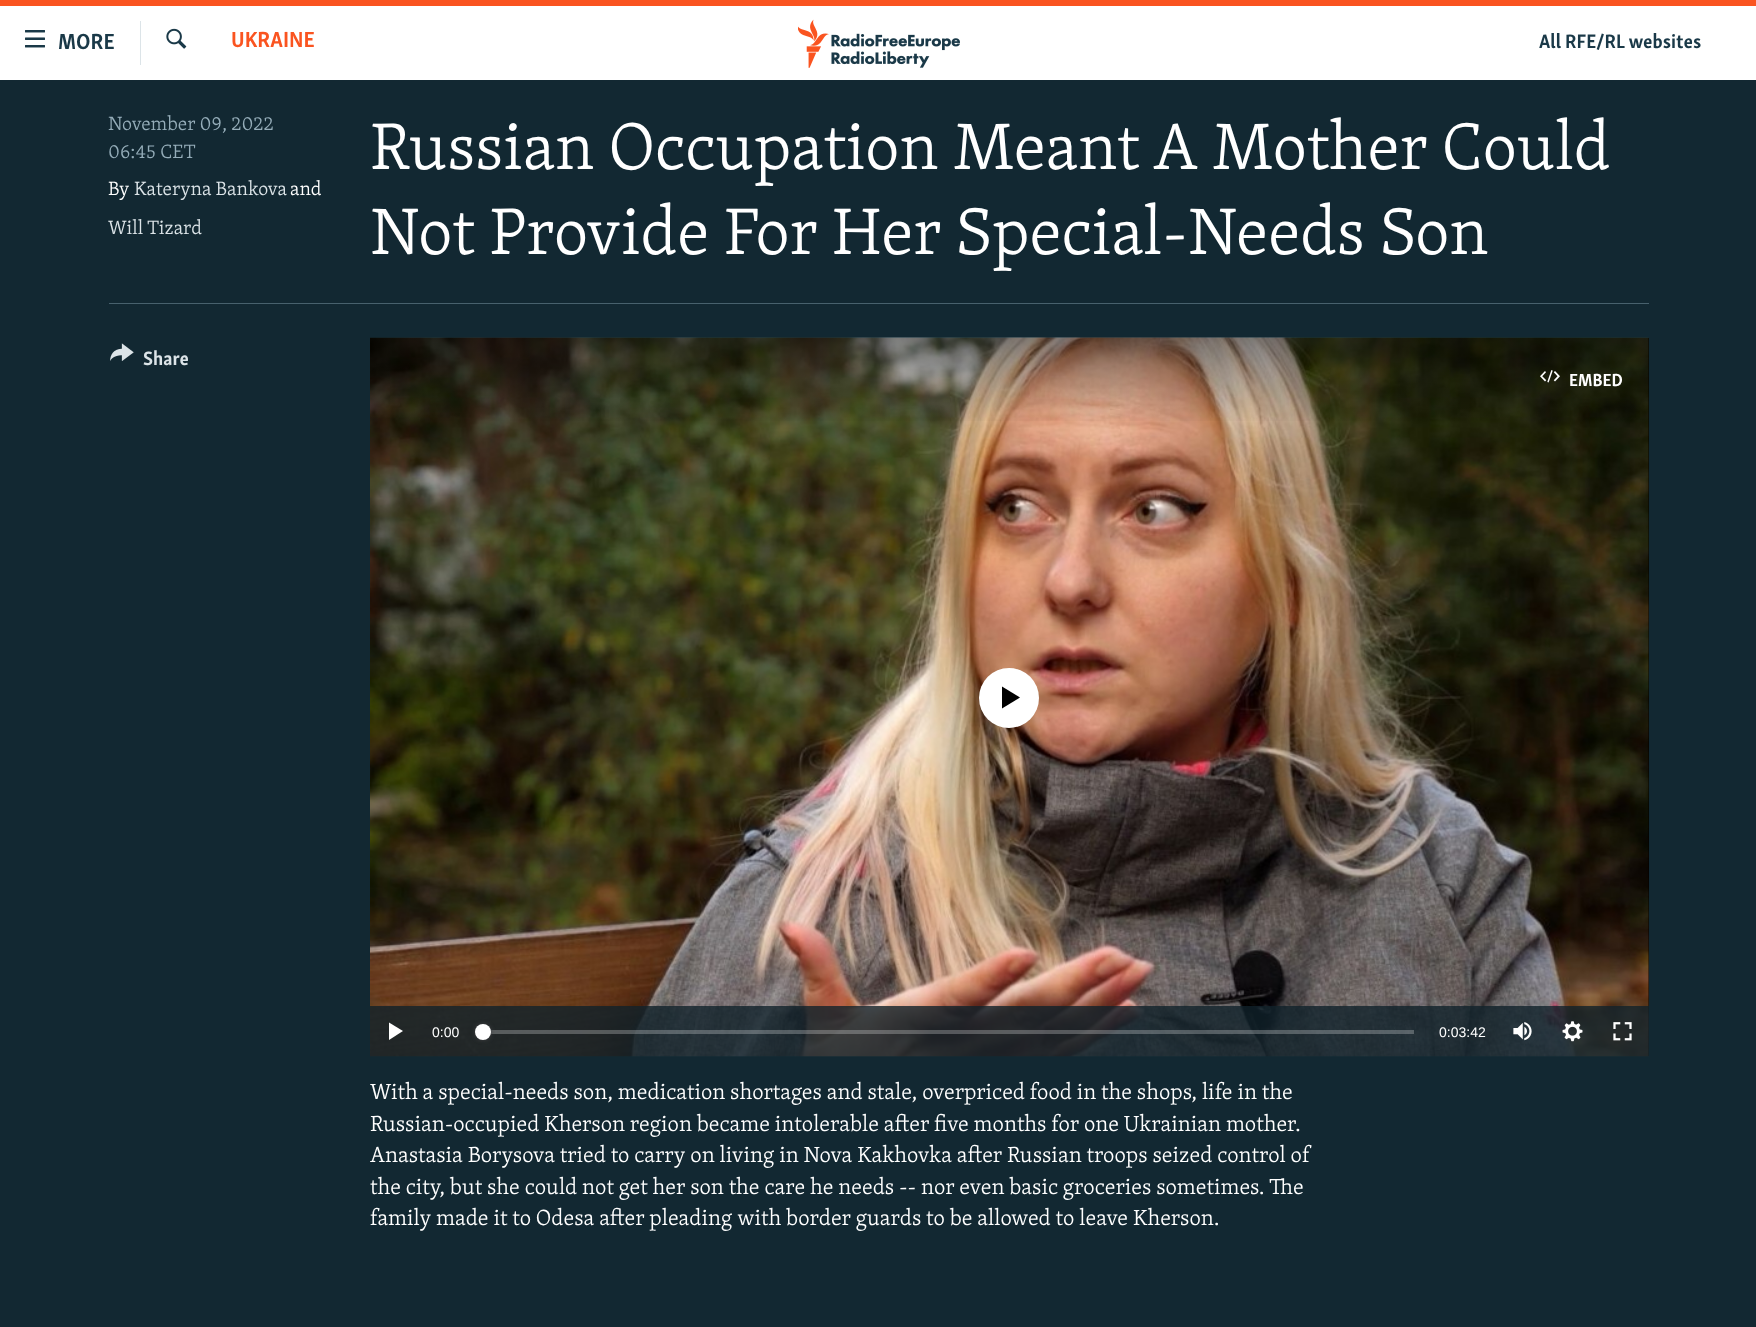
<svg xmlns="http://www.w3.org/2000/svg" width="1756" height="1327">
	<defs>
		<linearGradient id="g1" gradientUnits="userSpaceOnUse" x1="1009" y1="337" x2="1009" y2="425"><stop offset="0" stop-color="#000000" stop-opacity="0.5" /><stop offset="1" stop-color="#000000" stop-opacity="0" /></linearGradient>
	</defs>
	<rect width="100%" height="100%" fill="#FFFFFF" />
	<rect x="0" y="0" width="1756" height="6" fill="#FA5420" />
	<image x="25" y="30" width="20" height="18" href="assets/img1.png" />
	<text x="58" y="49" font-family="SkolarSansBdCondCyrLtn" font-size="22.5" font-weight="700" fill="#1A3948">MORE</text>
	<rect x="140" y="21" width="1" height="44" fill="#DCE4E8" />
	<image x="166" y="28" width="21" height="21" href="assets/img2.png" />
	<text x="231" y="47" font-family="SkolarSansBdCondCyrLtn" font-size="22.5" font-weight="700" fill="#FA5420">UKRAINE</text>
	<image x="798" y="19" width="162" height="49" href="assets/img3.png" />
	<text x="1539" y="48" font-family="SkolarSansBdCondCyrLtn" font-size="20" font-weight="700" fill="#1A3948">All RFE/RL websites</text>
	<rect x="0" y="80" width="1756" height="1247" fill="#122832" />
	<g font-family="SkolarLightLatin" font-size="19.75" font-weight="300" fill="#95ADB9">
		<text x="108" y="130">November 09, 2022</text>
		<text x="108" y="158">06:45 CET</text>
	</g>
	<text x="108" y="195" font-family="SkolarLightLatin" font-size="19.75" font-weight="300" fill="#FFFFFF">By</text>
	<text x="134" y="195" font-family="SkolarLightLatin" font-size="19.75" font-weight="300" fill="#DCE4E8">Kateryna Bankova</text>
	<text x="290" y="195" font-family="SkolarLightLatin" font-size="19.75" font-weight="300" fill="#FFFFFF">and</text>
	<text x="108" y="234" font-family="SkolarLightLatin" font-size="19.75" font-weight="300" fill="#DCE4E8">Will Tizard</text>
	<g font-family="SkolarLightLatin" font-size="67.5" font-weight="300" fill="#FFFFFF">
		<text x="370" y="169">Russian Occupation Meant A Mother Could</text>
		<text x="370" y="254">Not Provide For Her Special-Needs Son</text>
	</g>
	<rect x="109" y="303" width="1540" height="1" fill="#48616D" />
	<image x="110" y="343" width="24" height="18" href="assets/img4.png" />
	<text x="143" y="365" font-family="SkolarSansBdCondCyrLtn" font-size="19.75" font-weight="700" fill="#DCE4E8">Share</text>
	<rect x="1648" y="338" width="1" height="718" fill="#000000" />
	<image x="370" y="337" width="1279" height="720" href="assets/img5.png" />
	<rect x="370" y="338" width="1279" height="83" fill="url(#g1)" />
	<image x="1540" y="370" width="20" height="13" href="assets/img6.png" />
	<text x="1569" y="386" font-family="SkolarSansBdCondCyrLtn" font-size="18" font-weight="700" fill="#FFFFFF">EMBED</text>
	<circle cx="1009" cy="698" r="30" fill="#FFFFFF" />
	<path d="M1002 708.5L1020 697.5L1002 686.5Z" fill="#000000" />
	<rect x="370" y="1006" width="1279" height="50" fill="#10222B" fill-opacity="0.8" />
	<path d="M389 1040L403 1031L389 1022.5Z" fill="#FFFFFF" />
	<text x="432" y="1037" font-family="Liberation Sans" font-size="14" fill="#FFFFFF">0:00</text>
	<rect x="484" y="1030" width="930" height="4" fill="#FFFFFF" fill-opacity="0.25" />
	<rect x="475" y="1024" width="16" height="16" rx="8" fill="#414144" filter="blur(2px)" />
	<circle cx="483" cy="1032" r="8" fill="#FFFFFF" />
	<text x="1439" y="1037" font-family="Liberation Sans" font-size="14" fill="#FFFFFF">0:03:42</text>
	<image x="1513" y="1022" width="19" height="19" href="assets/img7.png" />
	<image x="1562" y="1021" width="21" height="21" href="assets/img8.png" />
	<image x="1613" y="1022" width="19" height="19" href="assets/img9.png" />
	<g font-family="SkolarLightLatin" font-size="22.5" font-weight="300" fill="#FFFFFF">
		<text x="370" y="1099">With a special-needs son, medication shortages and stale, overpriced food in the shops, life in the</text>
		<text x="370" y="1131">Russian-occupied Kherson region became intolerable after five months for one Ukrainian mother.</text>
		<text x="370" y="1162">Anastasia Borysova tried to carry on living in Nova Kakhovka after Russian troops seized control of</text>
		<text x="370" y="1194">the city, but she could not get her son the care he needs -- nor even basic groceries sometimes. The</text>
		<text x="370" y="1225">family made it to Odesa after pleading with border guards to be allowed to leave Kherson.</text>
	</g>
</svg>
